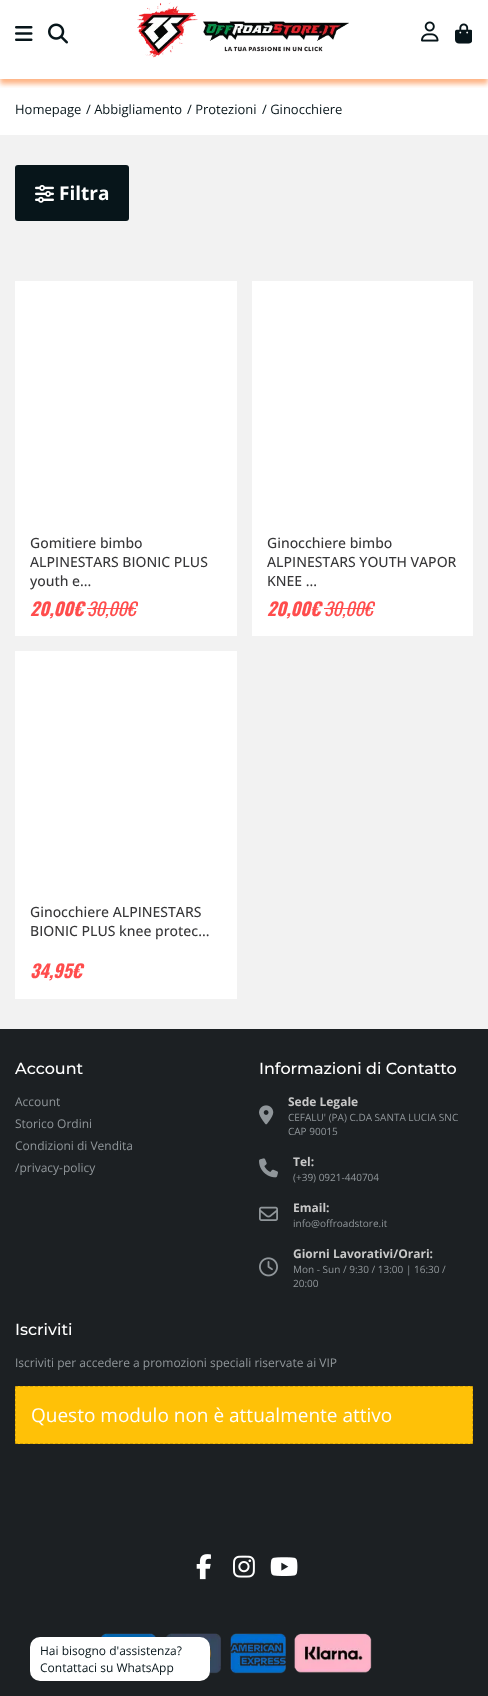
<svg xmlns="http://www.w3.org/2000/svg" width="488" height="1696">
	<defs>
		<clipPath id="clip1"><rect x="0" y="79" width="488" height="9" /></clipPath>
	</defs>
	<rect width="100%" height="100%" fill="#FFFFFF" />
	<g clip-path="url(#clip1)">
		<rect x="0" y="-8" width="488" height="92" fill="#FD6C0F" fill-opacity="0.5" filter="blur(2.5px)" />
	</g>
	<image x="15" y="26" width="18" height="15" href="assets/img1.png" />
	<image x="48" y="23" width="20" height="21" href="assets/img2.png" />
	<image x="137" y="2" width="212" height="56" href="assets/img3.png" />
	<image x="421" y="21" width="18" height="21" href="assets/img4.png" />
	<image x="455" y="23" width="17" height="21" href="assets/img5.png" />
	<g font-family="Open Sans" font-size="13" fill="#07151A">
		<text x="15" y="114">Homepage</text>
		<text x="86" y="114">/ Abbigliamento</text>
		<text x="187" y="114">/ Protezioni</text>
		<text x="262" y="114">/ Ginocchiere</text>
	</g>
	<rect x="0" y="135" width="488" height="894" fill="#F2F2F2" />
	<rect x="15" y="165" width="114" height="56" rx="3" fill="#07151A" />
	<image x="35" y="185" width="19" height="18" href="assets/img6.png" />
	<text x="59" y="200" font-family="Open Sans" font-size="19" font-weight="700" fill="#FFFFFF">Filtra</text>
	<rect x="15" y="281" width="222" height="355" fill="#FFFFFF" />
	<g font-family="Open Sans" font-size="14" font-weight="500" fill="#373739">
		<text x="30" y="548">Gomitiere bimbo</text>
		<text x="30" y="567">ALPINESTARS BIONIC PLUS</text>
		<text x="30" y="586">youth e...</text>
	</g>
	<text x="30" y="616" font-family="Oswald" font-size="18" font-weight="700" font-style="italic" fill="#FF4D4D">20,00€</text>
	<text x="87" y="616" font-family="Oswald" font-size="18" font-style="italic" fill="#FF4D4D">30,00€</text>
	<rect x="87" y="608" width="49" height="1" fill="#FF4D4D" />
	<rect x="252" y="281" width="221" height="355" fill="#FFFFFF" />
	<g font-family="Open Sans" font-size="14" font-weight="500" fill="#373739">
		<text x="267" y="548">Ginocchiere bimbo</text>
		<text x="267" y="567">ALPINESTARS YOUTH VAPOR</text>
		<text x="267" y="586">KNEE ...</text>
	</g>
	<text x="267" y="616" font-family="Oswald" font-size="18" font-weight="700" font-style="italic" fill="#FF4D4D">20,00€</text>
	<text x="324" y="616" font-family="Oswald" font-size="18" font-style="italic" fill="#FF4D4D">30,00€</text>
	<rect x="324" y="608" width="49" height="1" fill="#FF4D4D" />
	<rect x="15" y="651" width="222" height="348" fill="#FFFFFF" />
	<g font-family="Open Sans" font-size="14" font-weight="500" fill="#373739">
		<text x="30" y="917">Ginocchiere ALPINESTARS</text>
		<text x="30" y="936">BIONIC PLUS knee protec...</text>
	</g>
	<text x="30" y="978" font-family="Oswald" font-size="18" font-weight="700" font-style="italic" fill="#FF4D4D">34,95€</text>
	<rect x="0" y="1029" width="488" height="667" fill="#1C2023" />
	<text x="15" y="1074" font-family="Montserrat" font-size="16" font-weight="500" fill="#FFFFFF">Account</text>
	<g font-family="Open Sans" font-size="12" fill="#90969A">
		<text x="15" y="1106">Account</text>
		<text x="15" y="1128">Storico Ordini</text>
		<text x="15" y="1150">Condizioni di Vendita</text>
		<text x="15" y="1172">/privacy-policy</text>
	</g>
	<text x="259" y="1074" font-family="Montserrat" font-size="16" font-weight="500" fill="#FFFFFF">Informazioni di Contatto</text>
	<image x="259" y="1105" width="15" height="20" href="assets/img7.png" />
	<text x="288" y="1106" font-family="Open Sans" font-size="12" font-weight="700" fill="#C8C8C8">Sede Legale</text>
	<g font-family="Open Sans" font-size="10" fill="#90969A">
		<text x="288" y="1121">CEFALU' (PA) C.DA SANTA LUCIA SNC</text>
		<text x="288" y="1135">CAP 90015</text>
	</g>
	<image x="259" y="1158" width="19" height="20" href="assets/img8.png" />
	<text x="293" y="1166" font-family="Open Sans" font-size="12" font-weight="700" fill="#C8C8C8">Tel:</text>
	<text x="293" y="1181" font-family="Open Sans" font-size="10" fill="#90969A">(+39) 0921-440704</text>
	<image x="259" y="1206" width="19" height="15" href="assets/img9.png" />
	<text x="293" y="1212" font-family="Open Sans" font-size="12" font-weight="700" fill="#C8C8C8">Email:</text>
	<text x="293" y="1227" font-family="Open Sans" font-size="10" fill="#90969A">info@offroadstore.it</text>
	<image x="259" y="1257" width="19" height="20" href="assets/img10.png" />
	<text x="293" y="1258" font-family="Open Sans" font-size="12" font-weight="700" fill="#C8C8C8">Giorni Lavorativi/Orari:</text>
	<g font-family="Open Sans" font-size="10" fill="#90969A">
		<text x="293" y="1273">Mon - Sun / 9:30 / 13:00 | 16:30 /</text>
		<text x="293" y="1287">20:00</text>
	</g>
	<text x="15" y="1335" font-family="Montserrat" font-size="16" font-weight="500" fill="#FFFFFF">Iscriviti</text>
	<text x="15" y="1367" font-family="Open Sans" font-size="12" fill="#90969A">Iscriviti per accedere a promozioni speciali riservate ai VIP</text>
	<rect x="15" y="1386" width="458" height="58" fill="#FFC107" />
	<path d="M15 1386.5H473" fill="none" stroke="#D9A406" stroke-dasharray="3 2" />
	<path d="M472.5 1386V1444" fill="none" stroke="#000000" stroke-opacity="0.15" stroke-dasharray="3 2" />
	<path d="M15 1443.5H473" fill="none" stroke="#000000" stroke-opacity="0.15" stroke-dasharray="3 2" />
	<path d="M15.5 1386V1444" fill="none" stroke="#000000" stroke-opacity="0.15" stroke-dasharray="3 2" />
	<text x="31" y="1422" font-family="Open Sans" font-size="19" fill="#FFFFFF">Questo modulo non è attualmente attivo</text>
	<image x="101" y="1633" width="271" height="41" href="assets/img14.png" />
	<rect x="30" y="1637" width="180" height="44" rx="10" fill="#FFFFFF" />
	<g font-family="Open Sans" font-size="12" fill="#07151A">
		<text x="40" y="1655">Hai bisogno d'assistenza?</text>
		<text x="40" y="1672">Contattaci su WhatsApp</text>
	</g>
	<image x="196" y="1554" width="15" height="26" href="assets/img11.png" />
	<image x="233" y="1555" width="22" height="23" href="assets/img12.png" />
	<image x="270" y="1557" width="28" height="19" href="assets/img13.png" />
</svg>
